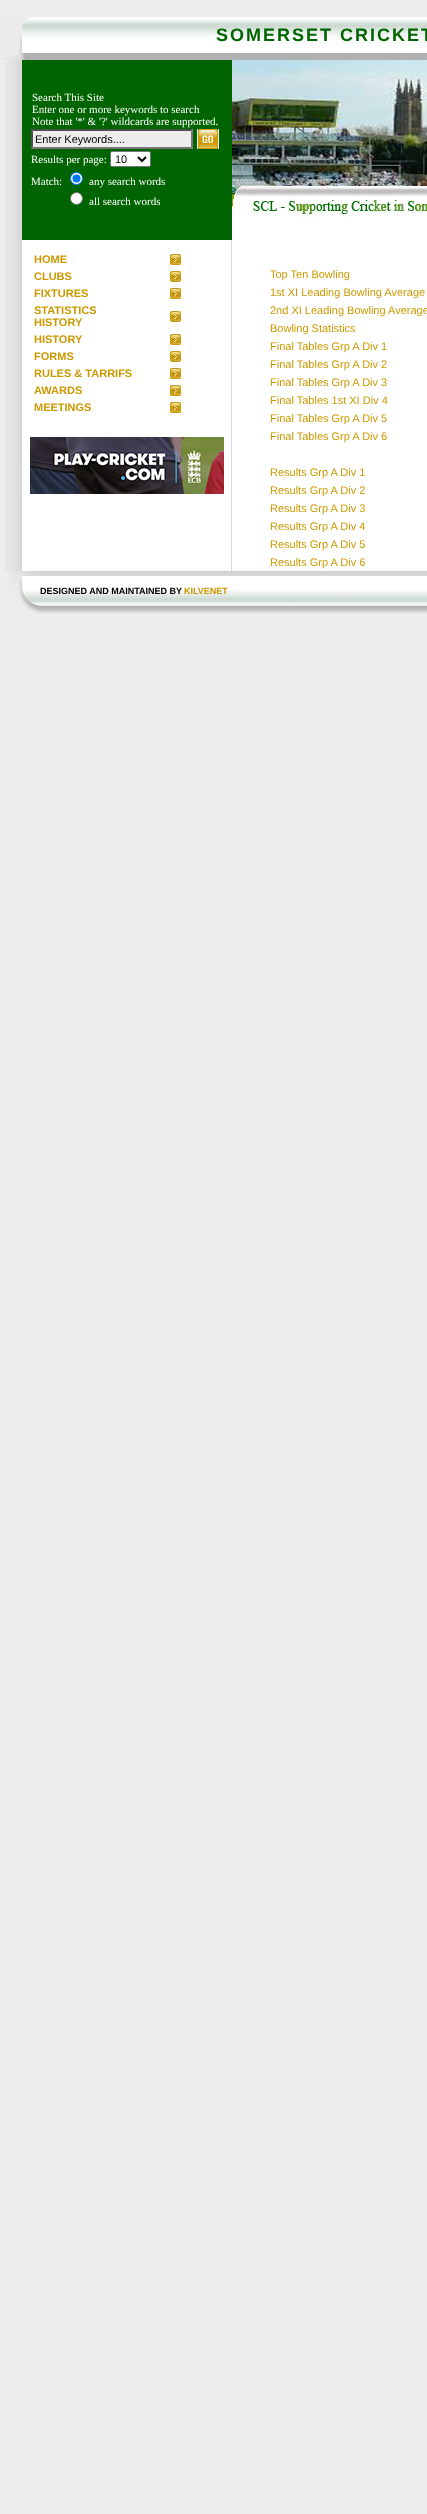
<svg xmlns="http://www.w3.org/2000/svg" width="427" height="2514">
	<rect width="100%" height="100%" fill="#EDEDED" />
	<image x="0" y="17" width="427" height="43" href="assets/img1.png" />
	<text x="216" y="41" font-family="Liberation Sans" font-size="18" font-weight="700" letter-spacing="2" fill="#006500">SOMERSET CRICKET</text>
	<image x="5" y="60" width="422" height="511" href="assets/img2.png" />
	<rect x="22" y="60" width="210" height="180" fill="#006500" />
	<g font-family="Liberation Serif" font-size="11" fill="#FFFFFF">
		<text x="32" y="101">Search This Site</text>
		<text x="32" y="113">Enter one or more keywords to search</text>
		<text x="32" y="125">Note that '*' &amp; '?' wildcards are supported.</text>
	</g>
	<rect x="31" y="129" width="162" height="20" fill="#EDEDED" />
	<path d="M31 129H193L191 131H33Z" fill="#4F4F4F" />
	<path d="M193 129V149L191 147V131Z" fill="#767676" />
	<path d="M193 149H31L33 147H191Z" fill="#767676" />
	<path d="M31 149V129L33 131V147Z" fill="#4F4F4F" />
	<text x="35" y="143" font-family="Liberation Sans" font-size="11" fill="#000000">Enter Keywords....</text>
	<rect x="197" y="129" width="22" height="20" fill="#EDEDED" />
	<image x="198" y="129" width="20" height="20" href="assets/img3.png" />
	<text x="31" y="163" font-family="Liberation Serif" font-size="11" fill="#FFFFFF">Results per page:</text>
	<rect x="110.5" y="151.5" width="40" height="15" rx="1.5" fill="#FFFFFF" stroke="#767676" />
	<path d="M138 157L142 161L146 157" fill="none" stroke="#000000" stroke-width="2" />
	<text x="115" y="163" font-family="Liberation Sans" font-size="11" fill="#000000">10</text>
	<text x="31" y="185" font-family="Liberation Serif" font-size="11" fill="#FFFFFF">Match:</text>
	<circle cx="76.5" cy="178.5" r="6" fill="#FFFFFF" stroke="#0075FF" />
	<circle cx="76.5" cy="178.5" r="4" fill="#0075FF" />
	<text x="89" y="185" font-family="Liberation Serif" font-size="11" fill="#FFFFFF">any search words</text>
	<circle cx="76.5" cy="198.5" r="6" fill="#FFFFFF" stroke="#767676" />
	<text x="89" y="205" font-family="Liberation Serif" font-size="11" fill="#FFFFFF">all search words</text>
	<text x="34" y="263" font-family="Liberation Sans" font-size="11" font-weight="700" fill="#CC9900">HOME</text>
	<image x="170" y="254" width="11" height="11" href="assets/img4.png" />
	<text x="34" y="280" font-family="Liberation Sans" font-size="11" font-weight="700" fill="#CC9900">CLUBS</text>
	<image x="170" y="271" width="11" height="11" href="assets/img4.png" />
	<text x="34" y="297" font-family="Liberation Sans" font-size="11" font-weight="700" fill="#CC9900">FIXTURES</text>
	<image x="170" y="288" width="11" height="11" href="assets/img4.png" />
	<g font-family="Liberation Sans" font-size="11" font-weight="700" fill="#CC9900">
		<text x="34" y="314">STATISTICS</text>
		<text x="34" y="326">HISTORY</text>
	</g>
	<image x="170" y="311" width="11" height="11" href="assets/img4.png" />
	<text x="34" y="343" font-family="Liberation Sans" font-size="11" font-weight="700" fill="#CC9900">HISTORY</text>
	<image x="170" y="334" width="11" height="11" href="assets/img4.png" />
	<text x="34" y="360" font-family="Liberation Sans" font-size="11" font-weight="700" fill="#CC9900">FORMS</text>
	<image x="170" y="351" width="11" height="11" href="assets/img4.png" />
	<text x="34" y="377" font-family="Liberation Sans" font-size="11" font-weight="700" fill="#CC9900">RULES &amp; TARRIFS</text>
	<image x="170" y="368" width="11" height="11" href="assets/img4.png" />
	<text x="34" y="394" font-family="Liberation Sans" font-size="11" font-weight="700" fill="#CC9900">AWARDS</text>
	<image x="170" y="385" width="11" height="11" href="assets/img4.png" />
	<text x="34" y="411" font-family="Liberation Sans" font-size="11" font-weight="700" fill="#CC9900">MEETINGS</text>
	<image x="170" y="402" width="11" height="11" href="assets/img4.png" />
	<image x="30" y="437" width="194" height="57" href="assets/img5.png" />
	<image x="232" y="60" width="195" height="160" href="assets/img6.png" />
	<g font-family="Liberation Sans" font-size="11" fill="#CC9900">
		<text x="270" y="278">Top Ten Bowling</text>
		<text x="270" y="296">1st XI Leading Bowling Average</text>
		<text x="270" y="314">2nd XI Leading Bowling Average</text>
		<text x="270" y="332">Bowling Statistics</text>
		<text x="270" y="350">Final Tables Grp A Div 1</text>
		<text x="270" y="368">Final Tables Grp A Div 2</text>
		<text x="270" y="386">Final Tables Grp A Div 3</text>
		<text x="270" y="404">Final Tables 1st XI Div 4</text>
		<text x="270" y="422">Final Tables Grp A Div 5</text>
		<text x="270" y="440">Final Tables Grp A Div 6</text>
		<text x="270" y="476">Results Grp A Div 1</text>
		<text x="270" y="494">Results Grp A Div 2</text>
		<text x="270" y="512">Results Grp A Div 3</text>
		<text x="270" y="530">Results Grp A Div 4</text>
		<text x="270" y="548">Results Grp A Div 5</text>
		<text x="270" y="566">Results Grp A Div 6</text>
	</g>
	<image x="8" y="571" width="419" height="43" href="assets/img7.png" />
	<text x="40" y="594" font-family="Liberation Sans" font-size="9" font-weight="700" fill="#000000">DESIGNED AND MAINTAINED BY</text>
	<text x="184" y="594" font-family="Liberation Sans" font-size="9" font-weight="700" fill="#CC9900">KILVENET</text>
</svg>
